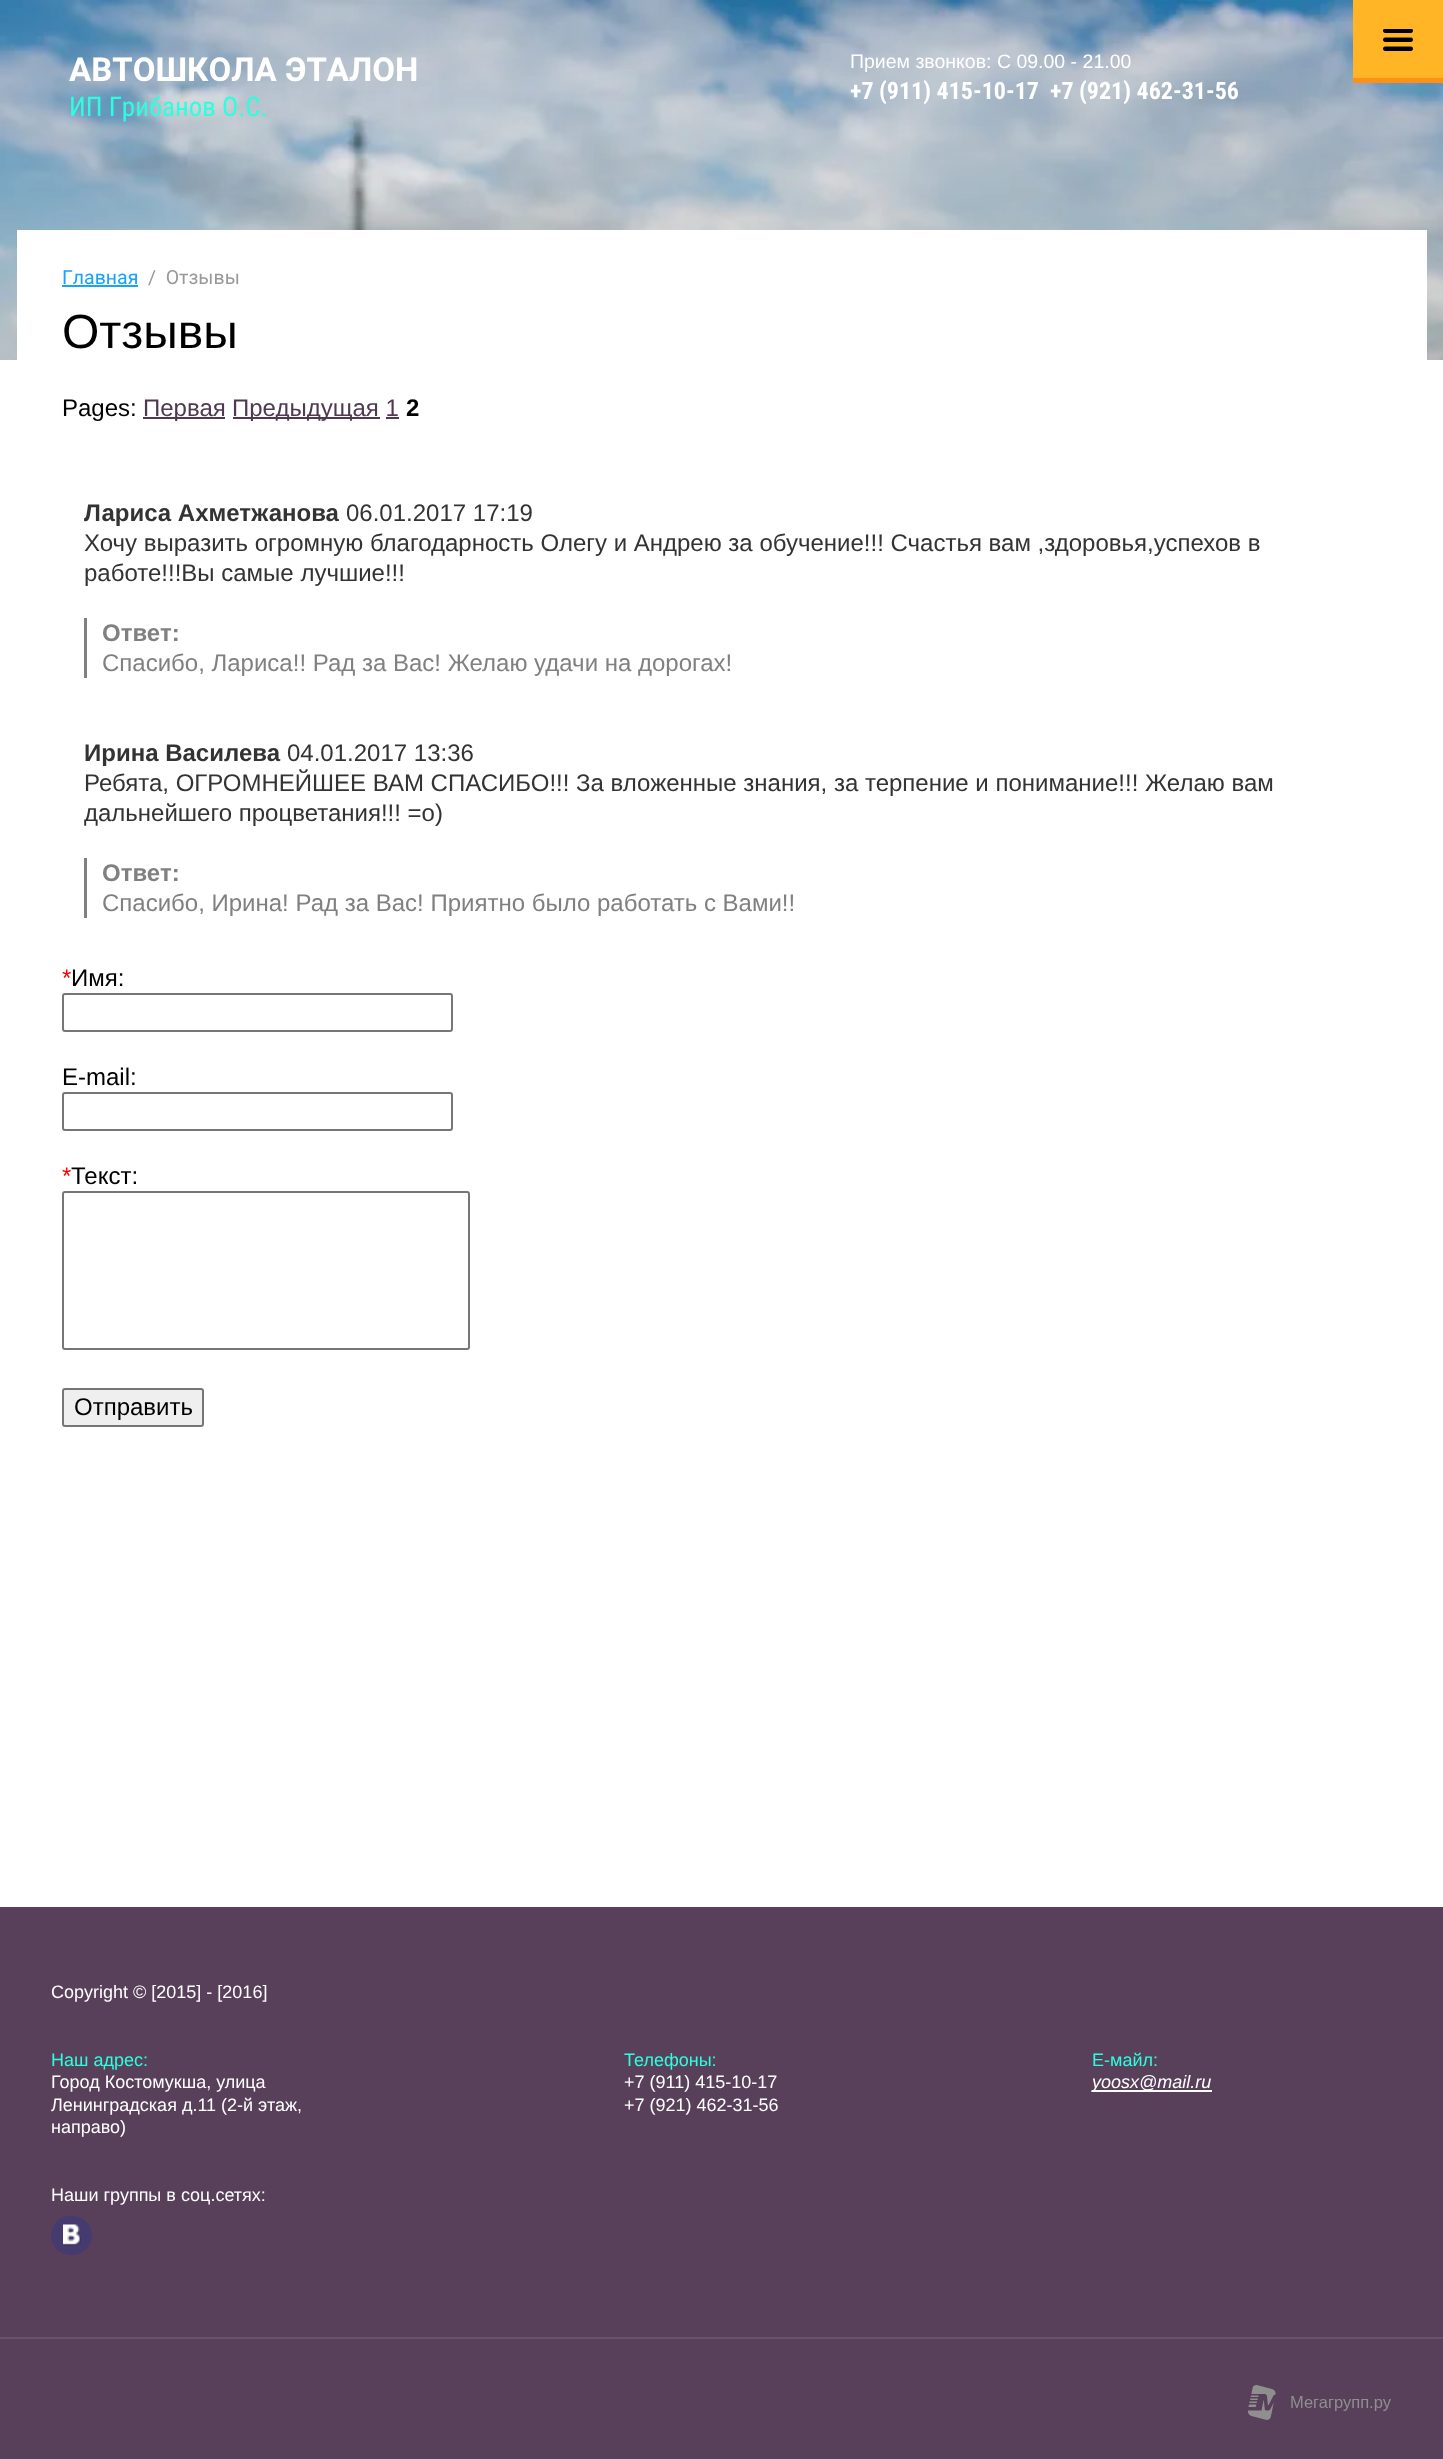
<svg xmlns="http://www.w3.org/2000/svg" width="1443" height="2459">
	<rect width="100%" height="100%" fill="#FFFFFF" />
	<image x="0" y="0" width="1443" height="360" href="assets/img1.png" />
	<text x="69" y="81" font-family="Roboto" font-size="33" font-weight="700" fill="#FFFFFF">АВТОШКОЛА ЭТАЛОН</text>
	<text x="69" y="116" font-family="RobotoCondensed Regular" font-size="27" fill="#2CFFDF">ИП Грибанов О.С.</text>
	<text x="850" y="68" font-family="Liberation Sans" font-size="19.5" fill="#FFFFFF">Прием звонков: С 09.00 - 21.00</text>
	<g font-family="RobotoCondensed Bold" font-size="24" font-weight="700" fill="#FFFFFF">
		<text x="850" y="99">+7 (911) 415-10-17</text>
		<text x="1050" y="99">+7 (921) 462-31-56</text>
	</g>
	<rect x="1353" y="0" width="90" height="78" fill="#FFB526" />
	<image x="1383" y="29" width="30" height="22" href="assets/img2.png" />
	<rect x="1353" y="78" width="90" height="5" fill="#FF9013" />
	<rect x="17" y="230" width="1410" height="130" fill="#FFFFFF" />
	<text x="62" y="284" font-family="Roboto" font-size="19.5" fill="#14A3FE">Главная</text>
	<rect x="62" y="285" width="76" height="2" fill="#14A3FE" />
	<text x="148" y="284" font-family="Roboto" font-size="19.5" fill="#999999" xml:space="preserve">/  Отзывы</text>
	<text x="62" y="348" font-family="Liberation Sans" font-size="48" fill="#000000">Отзывы</text>
	<text x="62" y="416" font-family="Liberation Sans" font-size="24" fill="#000000">Pages:</text>
	<rect x="143" y="417" width="82" height="2" fill="#4F3951" />
	<text x="143" y="416" font-family="Liberation Sans" font-size="24" fill="#4F3951">Первая</text>
	<rect x="233" y="417" width="147" height="2" fill="#4F3951" />
	<text x="232" y="416" font-family="Liberation Sans" font-size="24" fill="#4F3951">Предыдущая 1</text>
	<text x="406" y="416" font-family="Liberation Sans" font-size="24" font-weight="700" fill="#000000">2</text>
	<rect x="386" y="417" width="13" height="2" fill="#4F3951" />
	<text x="84" y="521" font-family="Liberation Sans" font-size="24" font-weight="700" fill="#333333">Лариса Ахметжанова</text>
	<g font-family="Liberation Sans" font-size="24" fill="#333333">
		<text x="346" y="521">06.01.2017 17:19</text>
		<text x="84" y="551">Хочу выразить огромную благодарность Олегу и Андрею за обучение!!! Счастья вам ,здоровья,успехов в</text>
		<text x="84" y="581">работе!!!Вы самые лучшие!!!</text>
	</g>
	<rect x="84" y="618" width="3" height="60" fill="#808080" />
	<text x="102" y="641" font-family="Liberation Sans" font-size="24" font-weight="700" fill="#808080">Ответ:</text>
	<text x="102" y="671" font-family="Liberation Sans" font-size="24" fill="#808080">Спасибо, Лариса!! Рад за Вас! Желаю удачи на дорогах!</text>
	<text x="84" y="761" font-family="Liberation Sans" font-size="24" font-weight="700" fill="#333333">Ирина Василева</text>
	<g font-family="Liberation Sans" font-size="24" fill="#333333">
		<text x="287" y="761">04.01.2017 13:36</text>
		<text x="84" y="791">Ребята, ОГРОМНЕЙШЕЕ ВАМ СПАСИБО!!! За вложенные знания, за терпение и понимание!!! Желаю вам</text>
		<text x="84" y="821">дальнейшего процветания!!! =о)</text>
	</g>
	<rect x="84" y="858" width="3" height="60" fill="#808080" />
	<text x="102" y="881" font-family="Liberation Sans" font-size="24" font-weight="700" fill="#808080">Ответ:</text>
	<text x="102" y="911" font-family="Liberation Sans" font-size="24" fill="#808080">Спасибо, Ирина! Рад за Вас! Приятно было работать с Вами!!</text>
	<text x="62" y="986" font-family="Liberation Sans" font-size="24" fill="#FF0000">*</text>
	<text x="71" y="986" font-family="Liberation Sans" font-size="24" fill="#000000">Имя:</text>
	<rect x="63" y="994" width="389" height="37" rx="2" fill="none" stroke="#767676" stroke-width="2" />
	<text x="62" y="1085" font-family="Liberation Sans" font-size="24" fill="#000000">E-mail:</text>
	<rect x="63" y="1093" width="389" height="37" rx="2" fill="none" stroke="#767676" stroke-width="2" />
	<text x="62" y="1184" font-family="Liberation Sans" font-size="24" fill="#FF0000">*</text>
	<text x="71" y="1184" font-family="Liberation Sans" font-size="24" fill="#000000">Текст:</text>
	<rect x="63" y="1192" width="406" height="157" rx="2" fill="none" stroke="#767676" stroke-width="2" />
	<rect x="63" y="1389" width="140" height="37" rx="2" fill="#EFEFEF" stroke="#767676" stroke-width="2" />
	<text x="74" y="1415" font-family="Liberation Sans" font-size="24" fill="#000000">Отправить</text>
	<rect x="0" y="1907" width="1443" height="552" fill="#58405A" />
	<rect x="0" y="2337" width="1443" height="2" fill="#69536B" />
	<text x="51" y="1998" font-family="Liberation Sans" font-size="18" fill="#FFFFFF">Copyright © [2015] - [2016]</text>
	<text x="51" y="2066" font-family="Liberation Sans" font-size="18" fill="#2CFFDF">Наш адрес:</text>
	<g font-family="Liberation Sans" font-size="18" fill="#FFFFFF">
		<text x="51" y="2088">Город Костомукша, улица</text>
		<text x="51" y="2111">Ленинградская д.11 (2-й этаж,</text>
		<text x="51" y="2133">направо)</text>
	</g>
	<text x="624" y="2066" font-family="Liberation Sans" font-size="18" fill="#2CFFDF">Телефоны:</text>
	<g font-family="Liberation Sans" font-size="18" fill="#FFFFFF">
		<text x="624" y="2088">+7 (911) 415-10-17</text>
		<text x="624" y="2111">+7 (921) 462-31-56</text>
	</g>
	<text x="1092" y="2066" font-family="Liberation Sans" font-size="18" fill="#2CFFDF">E-майл:</text>
	<rect x="1092" y="2090" width="120" height="2" fill="#FFFFFF" />
	<text x="1092" y="2088" font-family="Liberation Sans" font-size="18" font-style="italic" fill="#FFFFFF">yoosx@mail.ru</text>
	<text x="51" y="2201" font-family="Liberation Sans" font-size="18" fill="#FFFFFF">Наши группы в соц.сетях:</text>
	<rect x="51" y="2216" width="41" height="39" rx="19.5" fill="#463B6F" />
	<image x="63" y="2224" width="18" height="22" href="assets/img3.png" />
	<image x="1248" y="2385" width="143" height="35" href="assets/img4.png" />
</svg>
